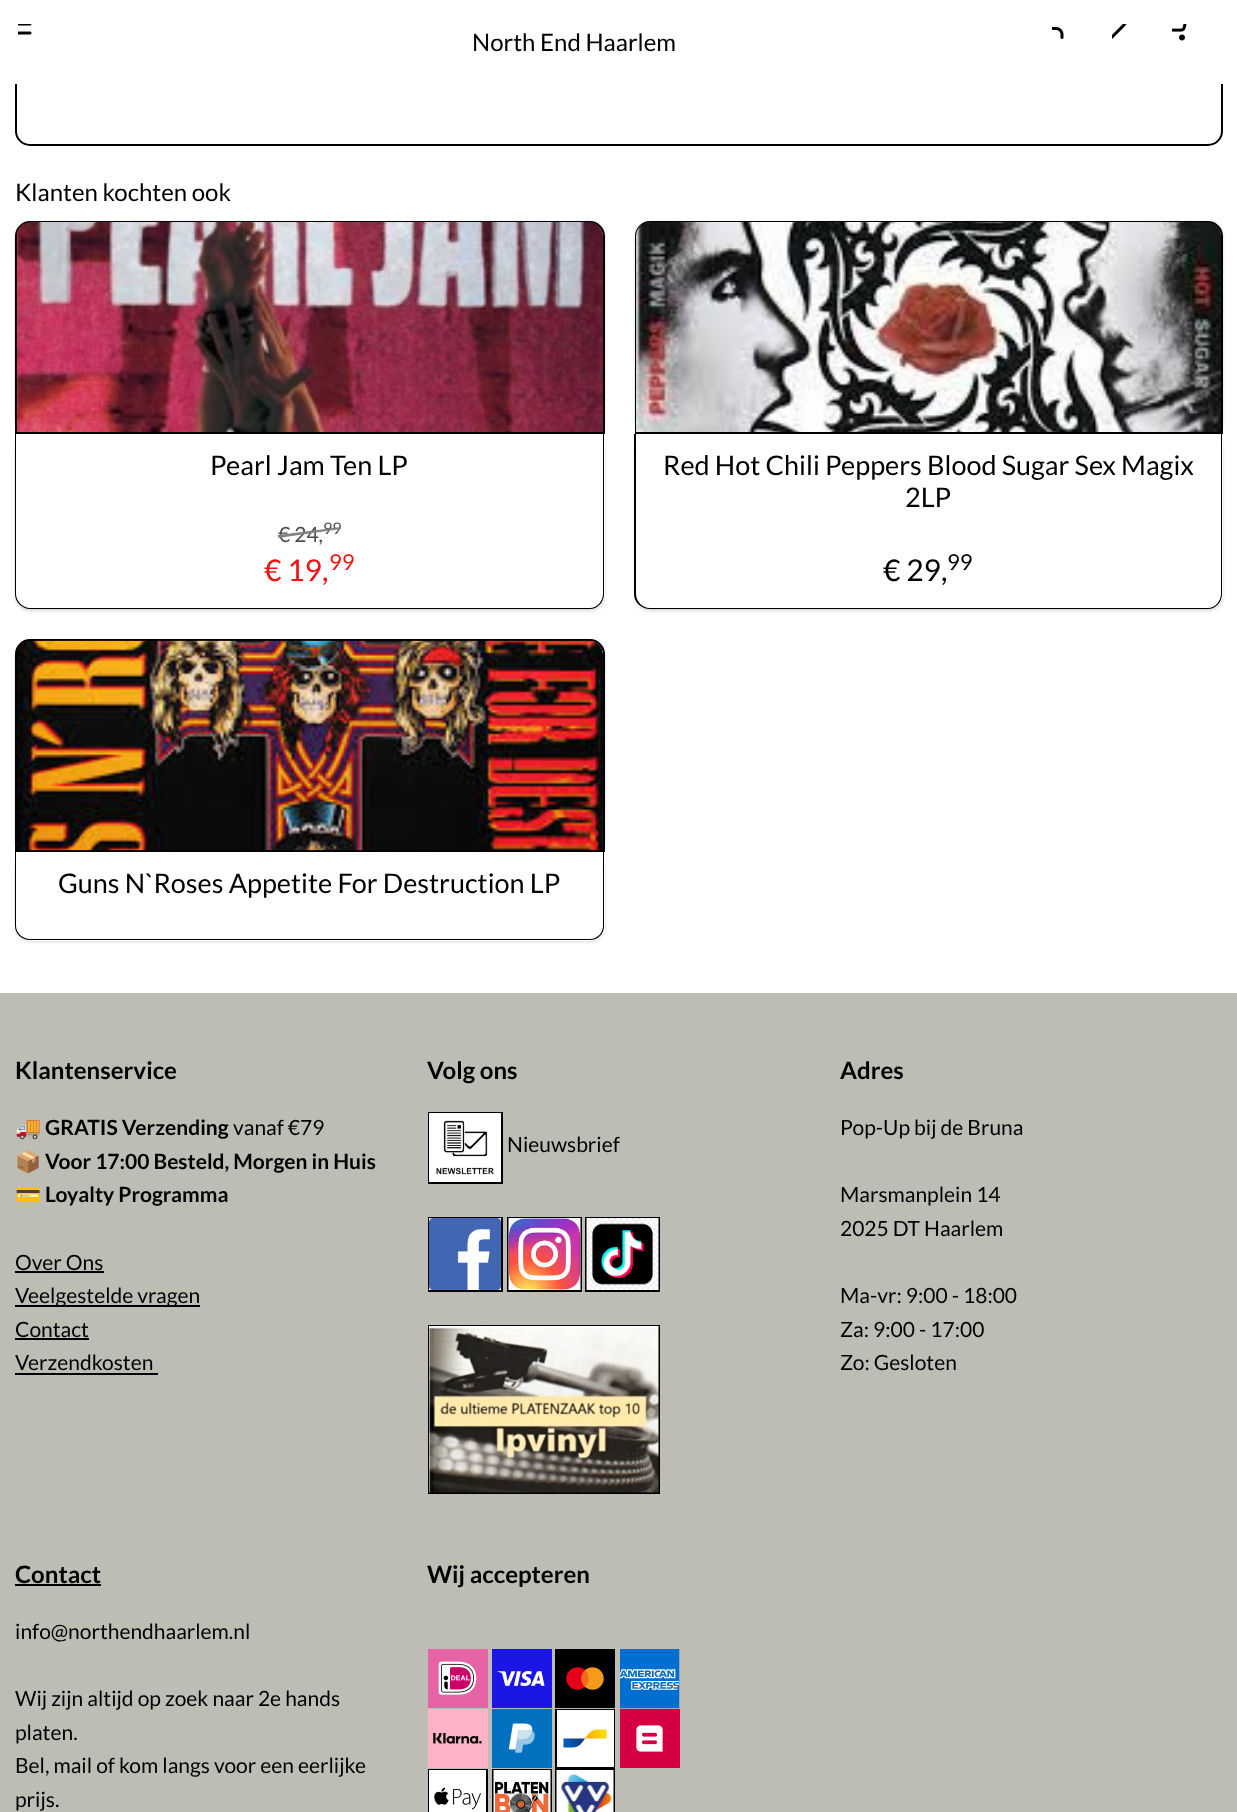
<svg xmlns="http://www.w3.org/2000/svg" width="1237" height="1812">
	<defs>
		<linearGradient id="g1" gradientUnits="userSpaceOnUse" x1="568" y1="1743" x2="584" y2="1737"><stop offset="0" stop-color="#005AB9" /><stop offset="1" stop-color="#1E3764" /></linearGradient>
		<linearGradient id="g2" gradientUnits="userSpaceOnUse" x1="586" y1="1739" x2="603" y2="1733"><stop offset="0" stop-color="#FBA900" /><stop offset="1" stop-color="#FFD800" /></linearGradient>
	</defs>
	<rect width="100%" height="100%" fill="#BEBDB5" />
	<rect x="0" y="84" width="1237" height="909" fill="#FFFFFF" />
	<rect x="16" y="-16" width="1206" height="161" rx="14" fill="none" stroke="#000000" stroke-width="2" />
	<rect x="0" y="0" width="1237" height="84" fill="#FFFFFF" />
	<image x="18" y="24" width="14" height="11" href="assets/img1.png" />
	<text x="472" y="51" font-family="Lato" font-size="24" fill="#000000">North End Haarlem</text>
	<image x="1052" y="27" width="12" height="12" href="assets/img2.png" />
	<image x="1112" y="24" width="15" height="15" href="assets/img3.png" />
	<image x="1172" y="24" width="15" height="17" href="assets/img4.png" />
	<text x="15" y="201" font-family="Lato" font-size="24" fill="#000000">Klanten kochten ook</text>
	<rect x="15" y="222" width="590" height="213" rx="15" fill="#000000" fill-opacity="0.15" filter="blur(1.5px)" />
	<path d="M30 222H590C597.5 222 604 228.5 604 236V433H16V236C16 228.5 22.5 222 30 222Z" fill="none" stroke="#000000" stroke-width="2" />
	<image x="16" y="222" width="587" height="210" href="assets/img5.png" />
	<rect x="15" y="435" width="590" height="176" rx="15" fill="#000000" fill-opacity="0.15" filter="blur(1.5px)" />
	<path d="M15 434H605V594C605 602.5 598.5 609 590 609H30C21.5 609 15 602.5 15 594Z" fill="#FFFFFF" />
	<path d="M15 434H604V594C604 602 598 609 590 609H30C22 609 15 602 15 594ZM16 434H603V594C603 601 597 608 590 608H30C23 608 16 601 16 594Z" fill="#000000" fill-rule="evenodd" />
	<text x="210" y="475" font-family="Lato" font-size="27" fill="#000000">Pearl Jam Ten LP</text>
	<text x="278" y="542" font-family="Lato" font-size="21" fill="#4D4D4D">€ 24,</text>
	<text x="323" y="534" font-family="Lato" font-size="16" fill="#4D4D4D">99</text>
	<path d="M278 535L341 527V529L278 538Z" fill="#828282" />
	<text x="264" y="581" font-family="Lato" font-size="30" fill="#F21010">€ 19,</text>
	<text x="329" y="570" font-family="Lato" font-size="22" fill="#F21010">99</text>
	<rect x="635" y="222" width="588" height="213" rx="15" fill="#000000" fill-opacity="0.15" filter="blur(1.5px)" />
	<path d="M650 222H1208C1215.5 222 1222 228.5 1222 236V433H636V236C636 228.5 642.5 222 650 222Z" fill="none" stroke="#000000" stroke-width="2" />
	<image x="636" y="222" width="585" height="210" href="assets/img6.png" />
	<rect x="635" y="435" width="588" height="176" rx="15" fill="#000000" fill-opacity="0.15" filter="blur(1.5px)" />
	<path d="M635 434H1223V594C1223 602.5 1216.5 609 1208 609H650C641.5 609 635 602.5 635 594Z" fill="#FFFFFF" />
	<path d="M634 434H1222V594C1222 602 1216 609 1208 609H650C641 609 634 602 634 594ZM636 434H1221V594C1221 601 1215 608 1208 608H650C642 608 636 601 636 594Z" fill="#000000" fill-rule="evenodd" />
	<g font-family="Lato" font-size="27" fill="#000000">
		<text x="663" y="475">Red Hot Chili Peppers Blood Sugar Sex Magix</text>
		<text x="905" y="507">2LP</text>
	</g>
	<text x="883" y="581" font-family="Lato" font-size="30" fill="#000000">€ 29,</text>
	<text x="947" y="570" font-family="Lato" font-size="22" fill="#000000">99</text>
	<rect x="15" y="641" width="590" height="213" rx="15" fill="#000000" fill-opacity="0.15" filter="blur(1.5px)" />
	<path d="M30 640H590C597.5 640 604 646.5 604 654V851H16V654C16 646.5 22.5 640 30 640Z" fill="#FFFFFF" stroke="#000000" stroke-width="2" />
	<image x="16" y="640" width="587" height="211" href="assets/img7.png" />
	<rect x="15" y="854" width="590" height="88" rx="15" fill="#000000" fill-opacity="0.15" filter="blur(1.5px)" />
	<path d="M15 852H605V926C605 934.5 598.5 941 590 941H30C21.5 941 15 934.5 15 926Z" fill="#FFFFFF" />
	<path d="M15 852H604V926C604 934 598 940 590 940H30C22 940 15 934 15 926ZM16 852H603V926C603 933 597 939 590 939H30C23 939 16 933 16 926Z" fill="#000000" fill-rule="evenodd" />
	<text x="58" y="893" font-family="Lato" font-size="27" fill="#000000">Guns N`Roses Appetite For Destruction LP</text>
	<text x="15" y="1079" font-family="Lato" font-size="24" font-weight="700" fill="#000000">Klantenservice</text>
	<text x="15" y="1135" font-family="Noto Color Emoji" font-size="21" fill="#000000">🚚</text>
	<text x="45" y="1135" font-family="Lato" font-size="21" font-weight="700" fill="#000000">GRATIS Verzending</text>
	<text x="233" y="1135" font-family="Lato" font-size="21" fill="#000000">vanaf €79</text>
	<text x="15" y="1169" font-family="Noto Color Emoji" font-size="21" fill="#000000">📦</text>
	<text x="45" y="1169" font-family="Lato" font-size="21" font-weight="700" fill="#000000">Voor 17:00 Besteld, Morgen in Huis</text>
	<text x="15" y="1202" font-family="Noto Color Emoji" font-size="21" fill="#000000">💳</text>
	<text x="45" y="1202" font-family="Lato" font-size="21" font-weight="700" fill="#000000">Loyalty Programma</text>
	<text x="15" y="1270" font-family="Lato" font-size="21" fill="#000000">Over Ons</text>
	<rect x="15" y="1271" width="89" height="2" fill="#000000" />
	<rect x="15" y="1305" width="185" height="2" fill="#000000" />
	<g font-family="Lato" font-size="21" fill="#000000">
		<text x="15" y="1303">Veelgestelde vragen</text>
		<text x="15" y="1337">Contact</text>
	</g>
	<rect x="15" y="1338" width="74" height="2" fill="#000000" />
	<text x="15" y="1370" font-family="Lato" font-size="21" fill="#000000">Verzendkosten</text>
	<rect x="15" y="1373" width="143" height="2" fill="#000000" />
	<text x="427" y="1079" font-family="Lato" font-size="24" font-weight="700" fill="#000000">Volg ons</text>
	<rect x="429" y="1113" width="73" height="70" fill="none" stroke="#000000" stroke-width="2" />
	<image x="429" y="1113" width="72" height="69" href="assets/img8.png" />
	<text x="507" y="1152" font-family="Lato" font-size="21" fill="#000000">Nieuwsbrief</text>
	<rect x="429" y="1218" width="73" height="73" fill="none" stroke="#000000" stroke-width="2" />
	<image x="429" y="1218" width="72" height="72" href="assets/img9.png" />
	<rect x="508" y="1218" width="73" height="73" fill="none" stroke="#000000" stroke-width="2" />
	<image x="508" y="1218" width="73" height="72" href="assets/img10.png" />
	<rect x="586" y="1218" width="73" height="73" fill="none" stroke="#000000" stroke-width="2" />
	<image x="586" y="1218" width="73" height="72" href="assets/img11.png" />
	<rect x="429" y="1326" width="230" height="167" fill="none" stroke="#000000" stroke-width="2" />
	<image x="429" y="1326" width="230" height="167" href="assets/img12.png" />
	<text x="840" y="1079" font-family="Lato" font-size="24" font-weight="700" fill="#000000">Adres</text>
	<g font-family="Lato" font-size="21" fill="#000000">
		<text x="840" y="1135">Pop-Up bij de Bruna</text>
		<text x="840" y="1202">Marsmanplein 14</text>
		<text x="840" y="1236">2025 DT Haarlem</text>
		<text x="840" y="1303">Ma-vr: 9:00 - 18:00</text>
		<text x="840" y="1337">Za: 9:00 - 17:00</text>
		<text x="840" y="1370">Zo: Gesloten</text>
	</g>
	<text x="15" y="1583" font-family="Lato" font-size="24" font-weight="700" fill="#000000">Contact</text>
	<rect x="15" y="1584" width="86" height="2" fill="#000000" />
	<g font-family="Lato" font-size="21" fill="#000000">
		<text x="15" y="1639">info@northendhaarlem.nl</text>
		<text x="15" y="1706">Wij zijn altijd op zoek naar 2e hands</text>
		<text x="15" y="1740">platen.</text>
		<text x="15" y="1773">Bel, mail of kom langs voor een eerlijke</text>
		<text x="15" y="1807">prijs.</text>
	</g>
	<text x="427" y="1583" font-family="Lato" font-size="24" font-weight="700" fill="#000000">Wij accepteren</text>
	<image x="428" y="1649" width="60" height="59" href="assets/img13.png" />
	<image x="492" y="1649" width="60" height="59" href="assets/img14.png" />
	<image x="555" y="1649" width="60" height="59" href="assets/img15.png" />
	<image x="620" y="1649" width="60" height="60" href="assets/img16.png" />
	<image x="428" y="1709" width="60" height="59" href="assets/img17.png" />
	<image x="492" y="1709" width="60" height="59" href="assets/img18.png" />
	<rect x="556" y="1710" width="58" height="58" fill="none" stroke="#000000" stroke-width="2" />
	<rect x="557" y="1710" width="57" height="57" fill="#FFFFFF" />
	<path d="M572.5 1747.5C579 1747.5 582 1743 585 1738.5H563.5V1747.5Z" fill="url(#g1)" />
	<path d="M597.5 1729.5C591 1729.5 588 1734 585 1738.5H606.5V1729.5Z" fill="url(#g2)" />
	<image x="620" y="1709" width="60" height="59" href="assets/img19.png" />
	<rect x="429" y="1770" width="58" height="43" fill="none" stroke="#000000" stroke-width="2" />
	<image x="429" y="1770" width="57" height="42" href="assets/img20.png" />
	<rect x="493" y="1770" width="58" height="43" fill="none" stroke="#000000" stroke-width="2" />
	<image x="493" y="1770" width="58" height="42" href="assets/img21.png" />
	<rect x="556" y="1770" width="58" height="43" fill="none" stroke="#000000" stroke-width="2" />
	<image x="556" y="1770" width="58" height="42" href="assets/img22.png" />
</svg>
